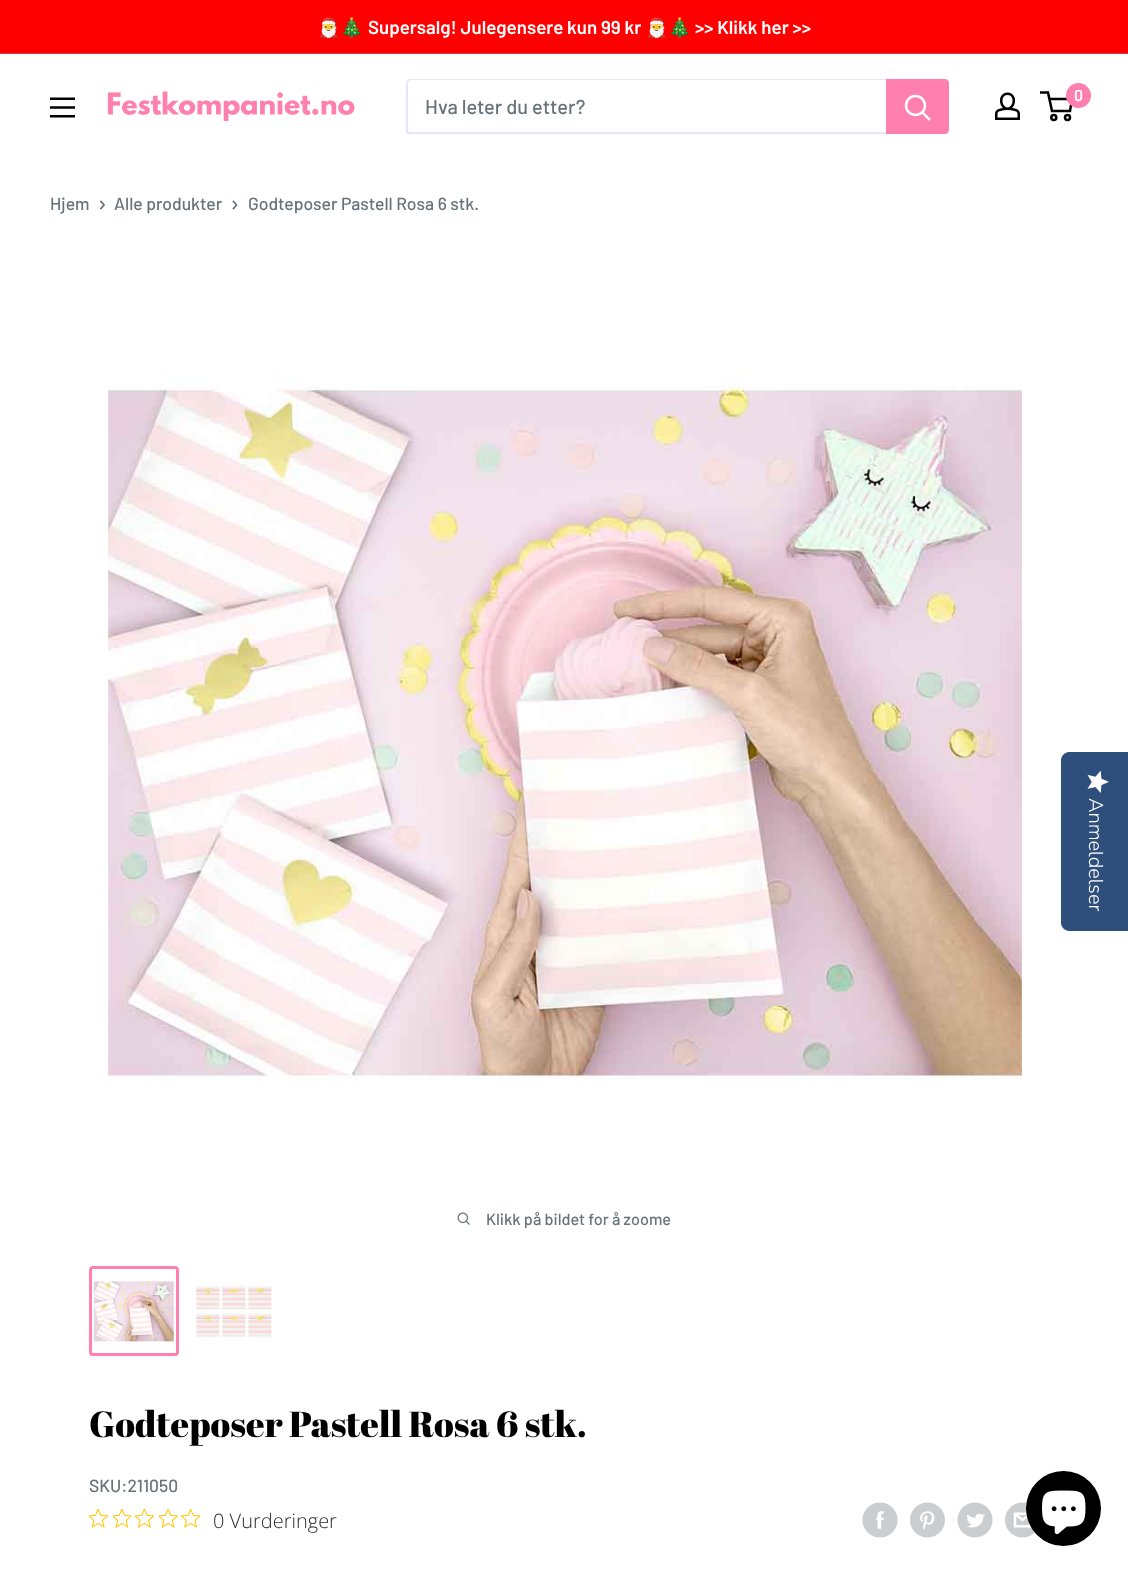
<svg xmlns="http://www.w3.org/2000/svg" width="1128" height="1572">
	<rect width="100%" height="100%" fill="#FFFFFF" />
	<rect x="0" y="0" width="1128" height="53" fill="#FF0000" />
	<rect x="0" y="53" width="1128" height="1" fill="#E33548" />
	<text x="317" y="34" font-family="Noto Color Emoji" font-size="18.75" font-weight="700" fill="#FFFFFF">🎅🎄</text>
	<text x="368" y="34" font-family="Barlow" font-size="18.75" font-weight="600" fill="#FFFFFF">Supersalg! Julegensere kun 99 kr</text>
	<text x="645" y="34" font-family="Noto Color Emoji" font-size="18.75" font-weight="700" fill="#FFFFFF">🎅🎄</text>
	<text x="695" y="34" font-family="Barlow" font-size="18.75" font-weight="600" fill="#FFFFFF">&gt;&gt; Klikk her &gt;&gt;</text>
	<image x="50" y="97" width="25" height="21" href="assets/img1.png" />
	<image x="107" y="91" width="248" height="30" href="assets/img2.png" />
	<path d="M406 131C407 133 408 134 410 134H945C947 134 949 132 949 130V83C949 82 949 81 948 80V129C948 131 946 132 944 132H409Z" fill="#E3E7FA" />
	<path d="M411 80H946L948 81C948 80 946 79 945 79H410C408 79 406 81 406 83V130C406 132 407 133 409 134L408 131V84C408 82 409 80 411 80Z" fill="#A3AFEF" fill-opacity="0.3" />
	<text x="425" y="114" font-family="Barlow" font-size="20" font-weight="500" fill="#677279">Hva leter du etter?</text>
	<path d="M886 79H945C947 79 949 81 949 83V130C949 132 947 134 945 134H886Z" fill="#FF7FAE" />
	<path d="M929 119L922.5 112.5" fill="none" stroke="#FFFFFF" stroke-width="2.5" stroke-linecap="square" />
	<circle cx="915.5" cy="105.5" r="9.5" fill="none" stroke="#FFFFFF" stroke-width="2.5" />
	<image x="995" y="92" width="25" height="28" href="assets/img3.png" />
	<circle cx="1053.8" cy="117.5" r="2.5" fill="none" stroke="#000000" stroke-width="2.5" />
	<circle cx="1067.5" cy="117.5" r="2.5" fill="none" stroke="#000000" stroke-width="2.5" />
	<path d="M1049 99H1072L1070 111H1052L1048 92.5H1040" fill="none" stroke="#000000" stroke-width="2.5" />
	<circle cx="1078.5" cy="95.5" r="12.5" fill="#FF7FAE" />
	<text x="1074" y="101" font-family="Barlow" font-size="16" font-weight="600" fill="#FFFFFF">0</text>
	<text x="50" y="210" font-family="Barlow" font-size="17.5" font-weight="500" fill="#677279">Hjem</text>
	<path d="M101 201.5L104 205L101 208.5" fill="none" stroke="#677279" stroke-width="1.7" stroke-linecap="square" />
	<text x="114" y="210" font-family="Barlow" font-size="17.5" font-weight="500" fill="#677279">Alle produkter</text>
	<path d="M233.5 201.5L236.5 205L233.5 208.5" fill="none" stroke="#677279" stroke-width="1.7" stroke-linecap="square" />
	<text x="248" y="210" font-family="Barlow" font-size="17.5" font-weight="500" fill="#677279">Godteposer Pastell Rosa 6 stk.</text>
	<image x="108" y="377" width="914" height="703" href="assets/img4.png" />
	<image x="457" y="1212" width="13" height="13" href="assets/img5.png" />
	<text x="486" y="1225" font-family="Barlow" font-size="16.25" font-weight="500" fill="#677279">Klikk på bildet for å zoome</text>
	<rect x="90.5" y="1267.5" width="87" height="87" rx="2.5" fill="none" stroke="#FF7FAE" stroke-width="3" />
	<image x="93" y="1280" width="81" height="64" href="assets/img6.png" />
	<image x="194" y="1286" width="79" height="52" href="assets/img7.png" />
	<text x="89" y="1437" font-family="Abril Fatface" font-size="36.25" fill="#000000">Godteposer Pastell Rosa 6 stk.</text>
	<text x="89" y="1492" font-family="Barlow" font-size="17.5" font-weight="500" fill="#677279">SKU:211050</text>
	<image x="89" y="1509" width="19" height="19" href="assets/img8.png" />
	<image x="113" y="1509" width="18" height="19" href="assets/img9.png" />
	<image x="135" y="1509" width="19" height="19" href="assets/img10.png" />
	<image x="159" y="1509" width="19" height="19" href="assets/img8.png" />
	<image x="181" y="1509" width="19" height="19" href="assets/img11.png" />
	<text x="213" y="1528" font-family="Open Sans" font-size="20" font-weight="300" fill="#2C2C2C">0 Vurderinger</text>
	<image x="862" y="1502" width="36" height="36" href="assets/img12.png" />
	<image x="910" y="1502" width="35" height="36" href="assets/img13.png" />
	<image x="957" y="1502" width="36" height="36" href="assets/img14.png" />
	<image x="1005" y="1502" width="30" height="36" href="assets/img15.png" />
	<path d="M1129 752V931H1069C1065 931 1061 927 1061 923V760C1061 756 1065 752 1069 752Z" fill="#2E4F7C" />
	<image x="1087" y="770" width="22" height="23" href="assets/img16.png" />
	<text x="1089" y="798" transform="rotate(90 1089 798)" font-family="Nunito Sans" font-size="20" font-weight="300" fill="#FFFFFF">Anmeldelser</text>
	<circle cx="1063.5" cy="1508.5" r="37.5" fill="#000000" />
	<image x="1042" y="1490" width="44" height="45" href="assets/img17.png" />
</svg>
